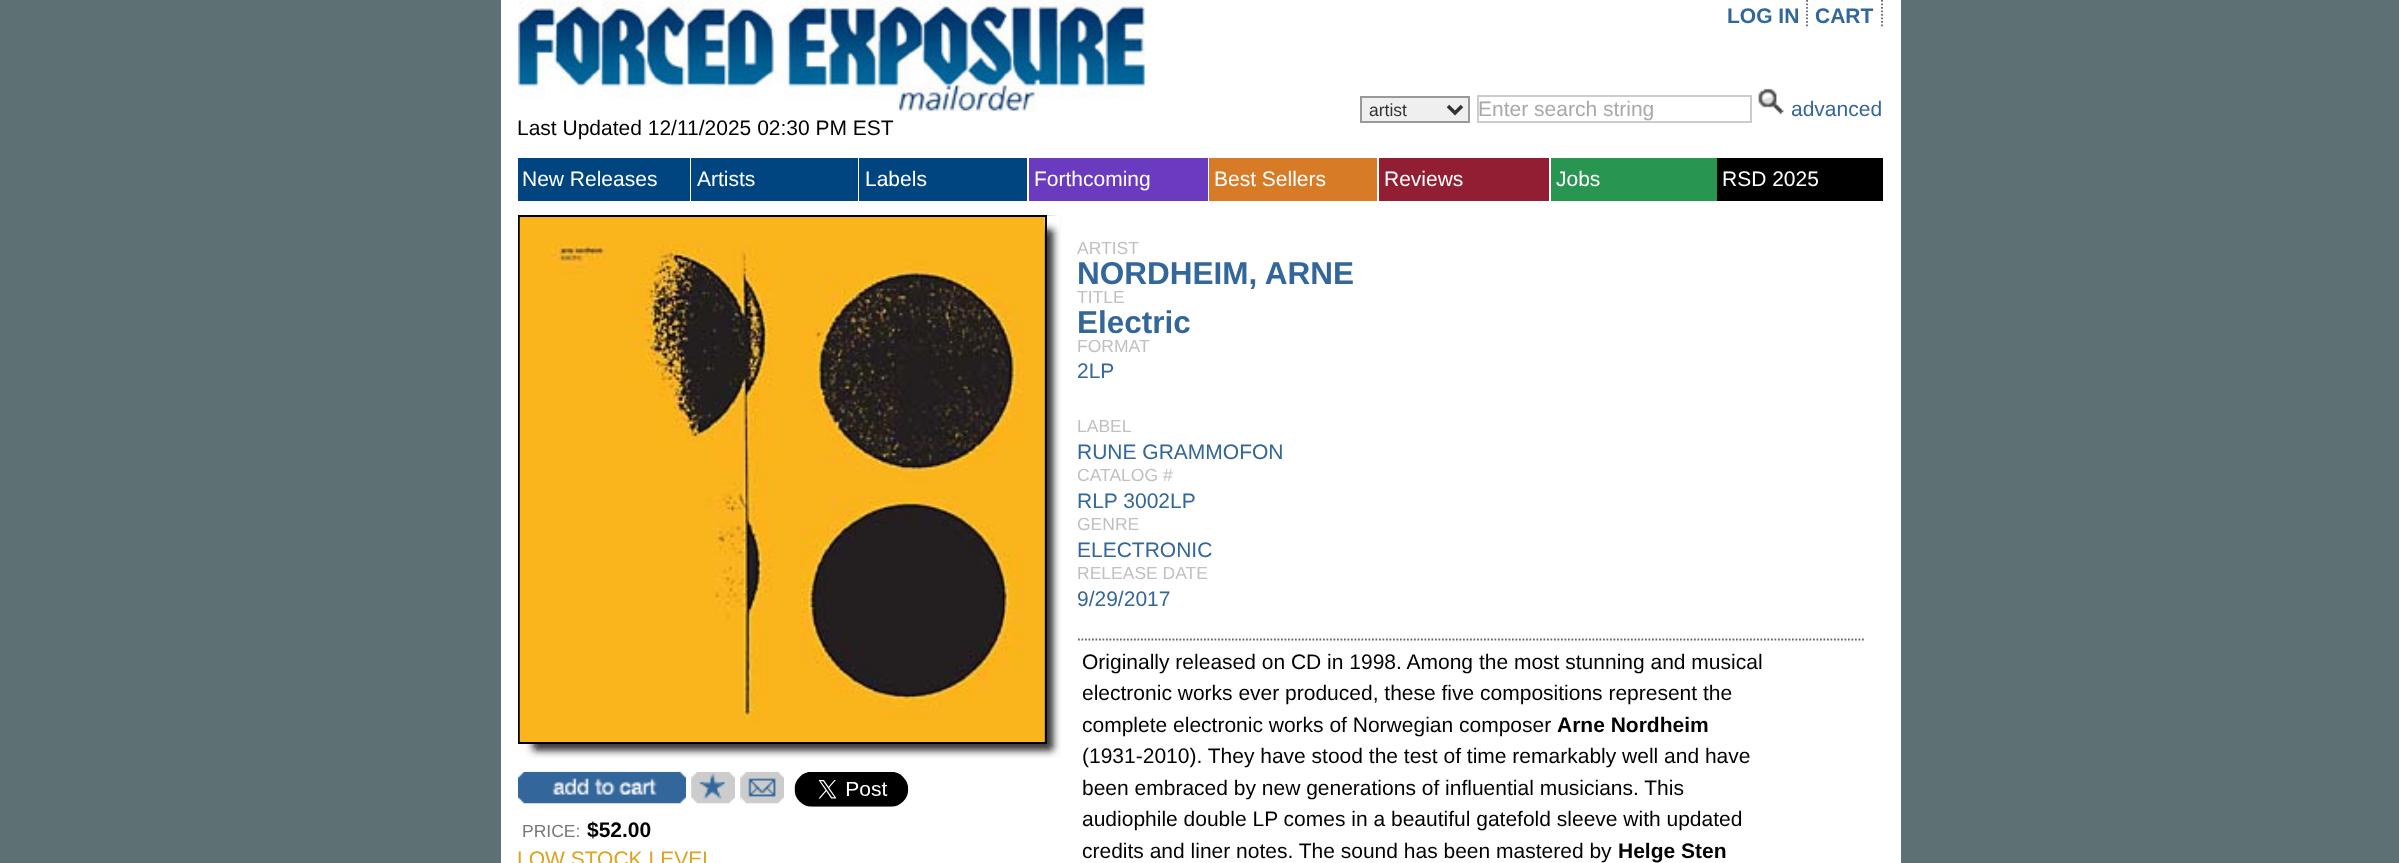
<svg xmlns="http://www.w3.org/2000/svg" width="2399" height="863">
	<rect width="100%" height="100%" fill="#5D7073" />
	<rect x="501" y="0" width="1400" height="863" fill="#FFFFFF" />
	<path d="M1807 0V28" fill="none" stroke="#666666" stroke-width="1.8" stroke-dasharray="1.75 1.75" />
	<text x="1727" y="23" font-family="Liberation Sans" font-size="21" font-weight="700" fill="#336699">LOG IN</text>
	<path d="M1882 0V28" fill="none" stroke="#666666" stroke-width="1.8" stroke-dasharray="1.75 1.75" />
	<text x="1815" y="23" font-family="Liberation Sans" font-size="21" font-weight="700" fill="#336699">CART</text>
	<rect x="1361" y="97" width="108" height="25" fill="#EFEFEF" stroke="#999999" stroke-width="2" />
	<path d="M1448 106L1455 113L1462 106" fill="none" stroke="#333333" stroke-width="3.5" />
	<text x="1369" y="116" font-family="Liberation Sans" font-size="17.5" fill="#333333">artist</text>
	<rect x="1478" y="96" width="273" height="26" fill="none" stroke="#CCCCCC" stroke-width="2" />
	<text x="1478" y="116" font-family="Liberation Sans" font-size="21" fill="#A9A9A9">Enter search string</text>
	<image x="1758" y="88" width="26" height="27" href="assets/img1.png" />
	<text x="1791" y="116" font-family="Liberation Sans" font-size="21" fill="#336699">advanced</text>
	<image x="518" y="0" width="627" height="113" href="assets/img2.png" />
	<text x="517" y="135" font-family="Liberation Sans" font-size="21" fill="#000000">Last Updated 12/11/2025 02:30 PM EST</text>
	<rect x="518" y="158" width="172" height="43" fill="#004580" />
	<text x="522" y="186" font-family="Liberation Sans" font-size="21" fill="#FFFFFF">New Releases</text>
	<rect x="691" y="158" width="167" height="43" fill="#004580" />
	<text x="697" y="186" font-family="Liberation Sans" font-size="21" fill="#FFFFFF">Artists</text>
	<rect x="859" y="158" width="168" height="43" fill="#004580" />
	<text x="865" y="186" font-family="Liberation Sans" font-size="21" fill="#FFFFFF">Labels</text>
	<rect x="1029" y="158" width="179" height="43" fill="#6B3BBF" />
	<text x="1034" y="186" font-family="Liberation Sans" font-size="21" fill="#FFFFFF">Forthcoming</text>
	<rect x="1209" y="158" width="168" height="43" fill="#D87B27" />
	<text x="1214" y="186" font-family="Liberation Sans" font-size="21" fill="#FFFFFF">Best Sellers</text>
	<rect x="1379" y="158" width="170" height="43" fill="#911E32" />
	<text x="1384" y="186" font-family="Liberation Sans" font-size="21" fill="#FFFFFF">Reviews</text>
	<rect x="1551" y="158" width="166" height="43" fill="#289551" />
	<text x="1556" y="186" font-family="Liberation Sans" font-size="21" fill="#FFFFFF">Jobs</text>
	<rect x="1717" y="158" width="166" height="43" fill="#000000" />
	<text x="1722" y="186" font-family="Liberation Sans" font-size="21" fill="#FFFFFF">RSD 2025</text>
	<image x="518" y="215" width="543" height="543" href="assets/img3.png" />
	<image x="518" y="744" width="22" height="14" href="assets/img4.png" />
	<image x="1044" y="215" width="16" height="22" href="assets/img5.png" />
	<rect x="519" y="216" width="527" height="527" fill="none" stroke="#000000" stroke-width="2" />
	<image x="519" y="217" width="526" height="525" href="assets/img6.png" />
	<image x="518" y="771" width="168" height="33" href="assets/img7.png" />
	<image x="691" y="772" width="44" height="32" href="assets/img8.png" />
	<image x="740" y="772" width="44" height="32" href="assets/img9.png" />
	<image x="794" y="772" width="115" height="35" href="assets/img10.png" />
	<text x="522" y="837" font-family="Liberation Sans" font-size="17.5" fill="#777777">PRICE:</text>
	<text x="587" y="837" font-family="Liberation Sans" font-size="21" font-weight="700" fill="#000000">$52.00</text>
	<text x="517" y="866" font-family="Liberation Sans" font-size="21" fill="#DAA520">LOW STOCK LEVEL</text>
	<text x="1077" y="254" font-family="Liberation Sans" font-size="17.5" fill="#C0C0C0">ARTIST</text>
	<text x="1077" y="284" font-family="Liberation Sans" font-size="31.5" font-weight="700" fill="#336699">NORDHEIM, ARNE</text>
	<text x="1077" y="303" font-family="Liberation Sans" font-size="17.5" fill="#C0C0C0">TITLE</text>
	<text x="1077" y="333" font-family="Liberation Sans" font-size="31.5" font-weight="700" fill="#336699">Electric</text>
	<text x="1077" y="352" font-family="Liberation Sans" font-size="17.5" fill="#C0C0C0">FORMAT</text>
	<text x="1077" y="378" font-family="Liberation Sans" font-size="21" fill="#336699">2LP</text>
	<text x="1077" y="432" font-family="Liberation Sans" font-size="17.5" fill="#C0C0C0">LABEL</text>
	<text x="1077" y="459" font-family="Liberation Sans" font-size="21" fill="#336699">RUNE GRAMMOFON</text>
	<text x="1077" y="481" font-family="Liberation Sans" font-size="17.5" fill="#C0C0C0">CATALOG #</text>
	<text x="1077" y="508" font-family="Liberation Sans" font-size="21" fill="#336699">RLP 3002LP</text>
	<text x="1077" y="530" font-family="Liberation Sans" font-size="17.5" fill="#C0C0C0">GENRE</text>
	<text x="1077" y="557" font-family="Liberation Sans" font-size="21" fill="#336699">ELECTRONIC</text>
	<text x="1077" y="579" font-family="Liberation Sans" font-size="17.5" fill="#C0C0C0">RELEASE DATE</text>
	<text x="1077" y="606" font-family="Liberation Sans" font-size="21" fill="#336699">9/29/2017</text>
	<path d="M1078 639.5H1865.5" fill="none" stroke="#666666" stroke-width="1.8" stroke-dasharray="1.75 1.75" />
	<g font-family="Liberation Sans" font-size="21" fill="#000000">
		<text x="1082" y="669">Originally released on CD in 1998. Among the most stunning and musical</text>
		<text x="1082" y="700">electronic works ever produced, these five compositions represent the</text>
		<text x="1082" y="732">complete electronic works of Norwegian composer</text>
	</g>
	<text x="1557" y="732" font-family="Liberation Sans" font-size="21" font-weight="700" fill="#000000">Arne Nordheim</text>
	<g font-family="Liberation Sans" font-size="21" fill="#000000">
		<text x="1082" y="763">(1931-2010). They have stood the test of time remarkably well and have</text>
		<text x="1082" y="795">been embraced by new generations of influential musicians. This</text>
		<text x="1082" y="826">audiophile double LP comes in a beautiful gatefold sleeve with updated</text>
		<text x="1082" y="858">credits and liner notes. The sound has been mastered by</text>
	</g>
	<text x="1618" y="858" font-family="Liberation Sans" font-size="21" font-weight="700" fill="#000000">Helge Sten</text>
</svg>
